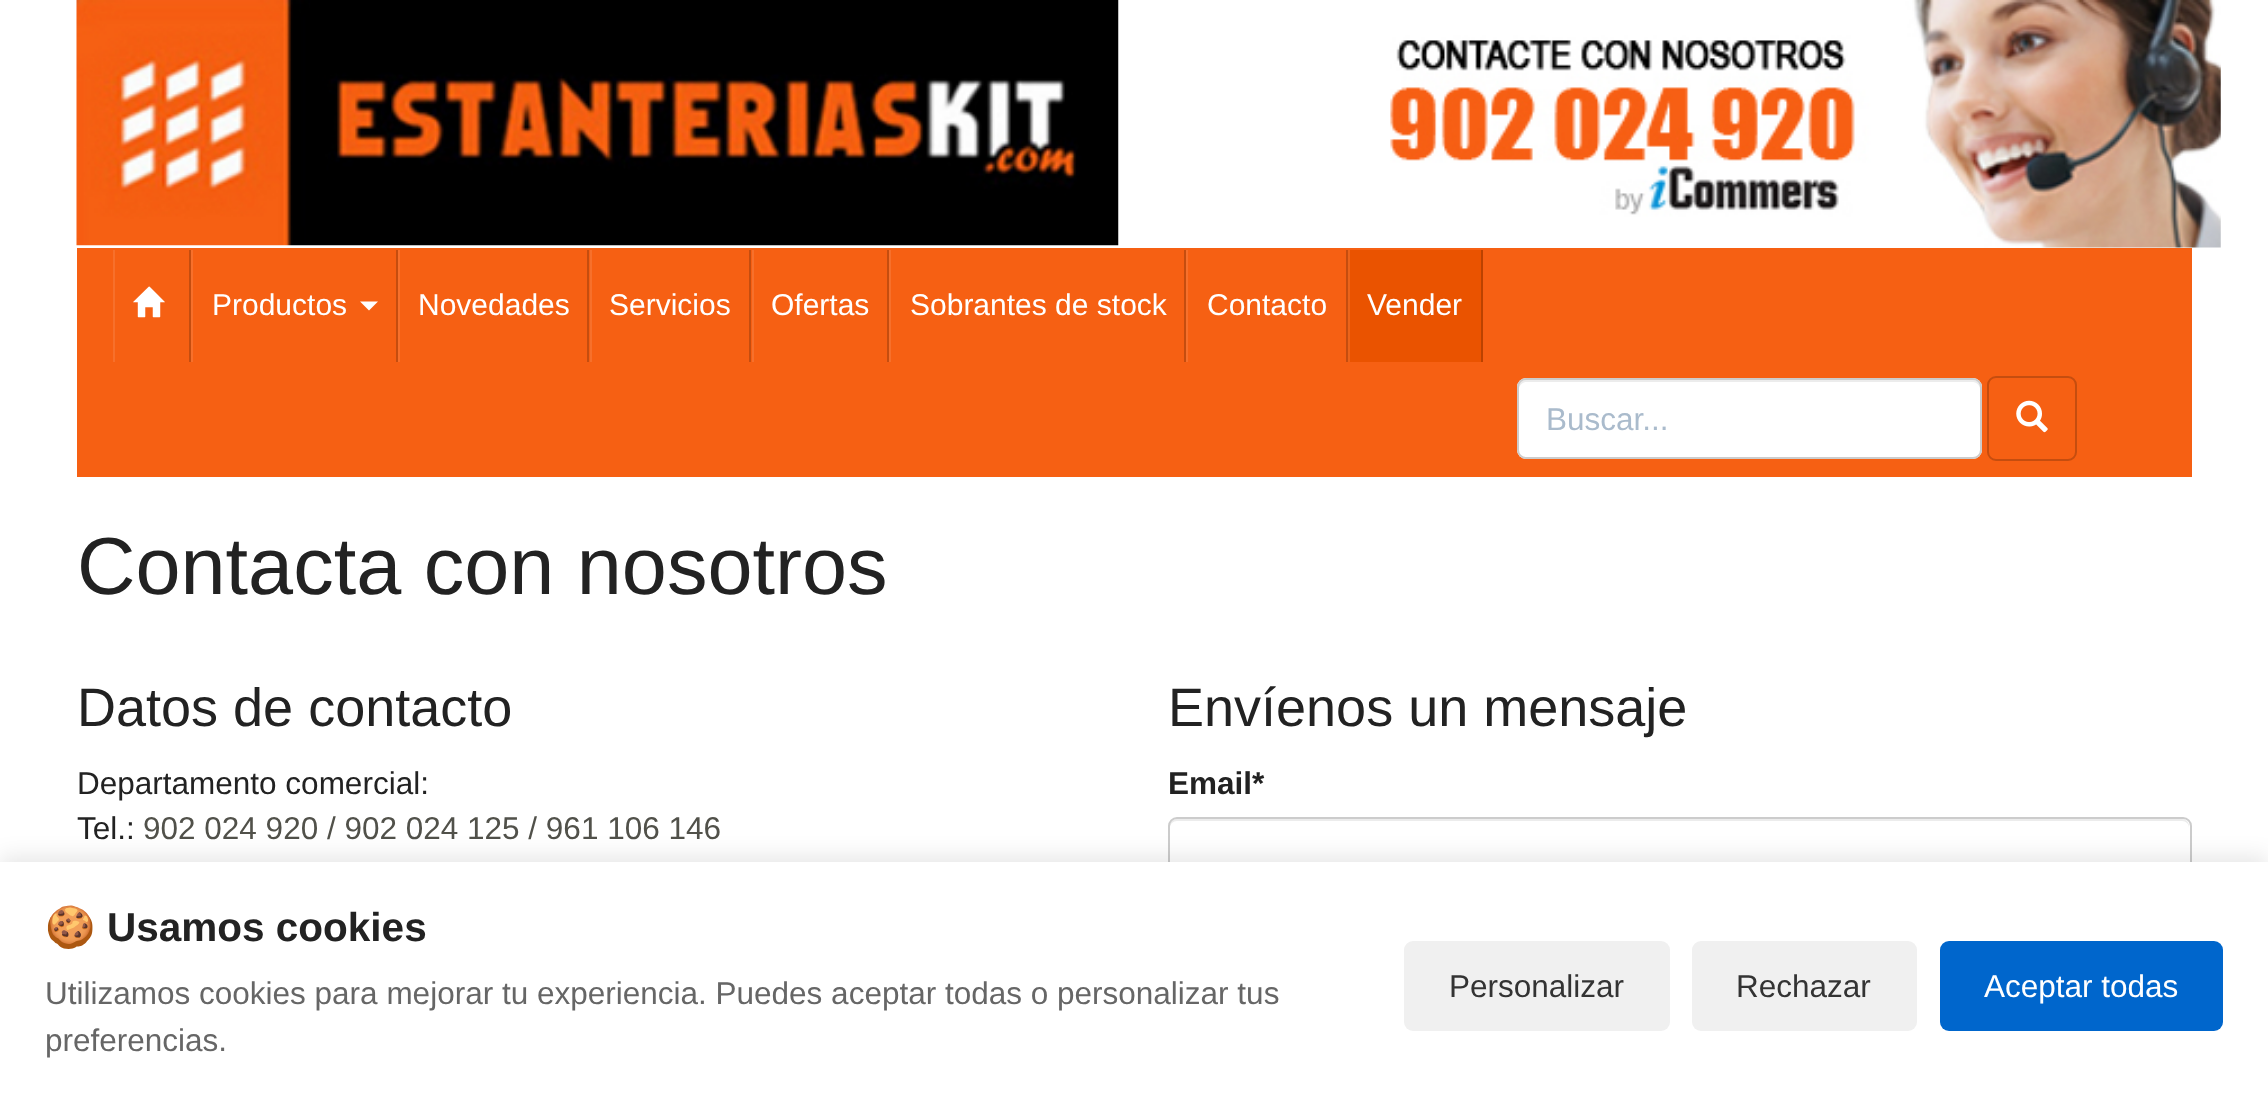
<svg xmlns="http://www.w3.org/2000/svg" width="2268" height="1109">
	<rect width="100%" height="100%" fill="#FFFFFF" />
	<image x="76" y="0" width="1043" height="246" href="assets/img1.png" />
	<image x="1390" y="0" width="831" height="248" href="assets/img2.png" />
	<rect x="77" y="248" width="2115" height="229" fill="#F66013" />
	<rect x="189" y="250" width="2" height="112" fill="#C54D0F" />
	<rect x="113" y="250" width="2" height="112" fill="#F7702B" />
	<image x="133" y="286" width="32" height="32" href="assets/img3.png" />
	<rect x="396" y="250" width="2" height="112" fill="#C54D0F" />
	<rect x="191" y="250" width="2" height="112" fill="#F7702B" />
	<text x="212" y="315" font-family="Liberation Sans" font-size="30" fill="#FFFFFF">Productos</text>
	<path d="M360 301.5H378L369 310.5Z" fill="#FFFFFF" />
	<rect x="587" y="250" width="2" height="112" fill="#C54D0F" />
	<rect x="398" y="250" width="2" height="112" fill="#F7702B" />
	<text x="418" y="315" font-family="Liberation Sans" font-size="30" fill="#FFFFFF">Novedades</text>
	<rect x="749" y="250" width="2" height="112" fill="#C54D0F" />
	<rect x="590" y="250" width="2" height="112" fill="#F7702B" />
	<text x="609" y="315" font-family="Liberation Sans" font-size="30" fill="#FFFFFF">Servicios</text>
	<rect x="887" y="250" width="2" height="112" fill="#C54D0F" />
	<rect x="752" y="250" width="2" height="112" fill="#F7702B" />
	<text x="771" y="315" font-family="Liberation Sans" font-size="30" fill="#FFFFFF">Ofertas</text>
	<rect x="1184" y="250" width="2" height="112" fill="#C54D0F" />
	<rect x="889" y="250" width="2" height="112" fill="#F7702B" />
	<text x="910" y="315" font-family="Liberation Sans" font-size="30" fill="#FFFFFF">Sobrantes de stock</text>
	<rect x="1346" y="250" width="2" height="112" fill="#C54D0F" />
	<rect x="1186" y="250" width="2" height="112" fill="#F7702B" />
	<text x="1207" y="315" font-family="Liberation Sans" font-size="30" fill="#FFFFFF">Contacto</text>
	<rect x="1350" y="250" width="131" height="112" fill="#EA5300" />
	<rect x="1481" y="250" width="2" height="112" fill="#BB4200" />
	<rect x="1348" y="250" width="2" height="112" fill="#EC641A" />
	<text x="1367" y="315" font-family="Liberation Sans" font-size="30" fill="#FFFFFF">Vender</text>
	<rect x="1517" y="378" width="465" height="81" rx="9" fill="#FFFFFF" />
	<path d="M1526 382H1973C1977 382 1980 386 1980 389V387C1980 383 1977 380 1973 380H1526C1522 380 1519 383 1519 387V389C1519 386 1522 382 1526 382Z" fill="#ECECEC" />
	<rect x="1518" y="379" width="463" height="79" rx="8" fill="none" stroke="#CCCCCC" stroke-width="2" />
	<text x="1546" y="430" font-family="Liberation Sans" font-size="31.5" fill="#AABBCC">Buscar...</text>
	<rect x="1988" y="377" width="88" height="83" rx="8" fill="none" stroke="#C54D0F" stroke-width="2" />
	<image x="2016" y="400" width="32" height="33" href="assets/img4.png" />
	<text x="77" y="594" font-family="Liberation Sans" font-size="81" fill="#222222">Contacta con nosotros</text>
	<text x="77" y="726" font-family="Liberation Sans" font-size="54" fill="#222222">Datos de contacto</text>
	<g font-family="Liberation Sans" font-size="31.5" fill="#222222">
		<text x="77" y="794">Departamento comercial:</text>
		<text x="77" y="839">Tel.:</text>
	</g>
	<text x="143" y="839" font-family="Liberation Sans" font-size="31.5" fill="#51514A">902 024 920 / 902 024 125 / 961 106 146</text>
	<text x="1168" y="726" font-family="Liberation Sans" font-size="54" fill="#222222">Envíenos un mensaje</text>
	<text x="1168" y="794" font-family="Liberation Sans" font-size="31.5" font-weight="700" fill="#222222">Email*</text>
	<path d="M1177 821H2182C2186 821 2189 824 2189 828V826C2189 822 2186 819 2182 819H1177C1173 819 1170 822 1170 826V828C1170 824 1173 821 1177 821Z" fill="#ECECEC" />
	<rect x="1169" y="818" width="1022" height="83" rx="8" fill="none" stroke="#CCCCCC" stroke-width="2" />
	<rect x="0" y="857" width="2268" height="248" fill="#000000" fill-opacity="0.1" filter="blur(11px)" />
	<rect x="0" y="862" width="2268" height="247" fill="#FFFFFF" />
	<text x="45" y="941" font-family="Noto Color Emoji" font-size="40.5" font-weight="700" fill="#222222">🍪</text>
	<text x="107" y="941" font-family="Liberation Sans" font-size="40.5" font-weight="700" fill="#222222">Usamos cookies</text>
	<g font-family="Liberation Sans" font-size="31.5" fill="#666666">
		<text x="45" y="1004">Utilizamos cookies para mejorar tu experiencia. Puedes aceptar todas o personalizar tus</text>
		<text x="45" y="1051">preferencias.</text>
	</g>
	<rect x="1404" y="941" width="266" height="90" rx="9" fill="#F0F0F0" />
	<text x="1449" y="997" font-family="Liberation Sans" font-size="31.5" fill="#333333">Personalizar</text>
	<rect x="1692" y="941" width="225" height="90" rx="9" fill="#F0F0F0" />
	<text x="1736" y="997" font-family="Liberation Sans" font-size="31.5" fill="#333333">Rechazar</text>
	<rect x="1940" y="941" width="283" height="90" rx="9" fill="#0066CC" />
	<text x="1984" y="997" font-family="Liberation Sans" font-size="31.5" fill="#FFFFFF">Aceptar todas</text>
</svg>
